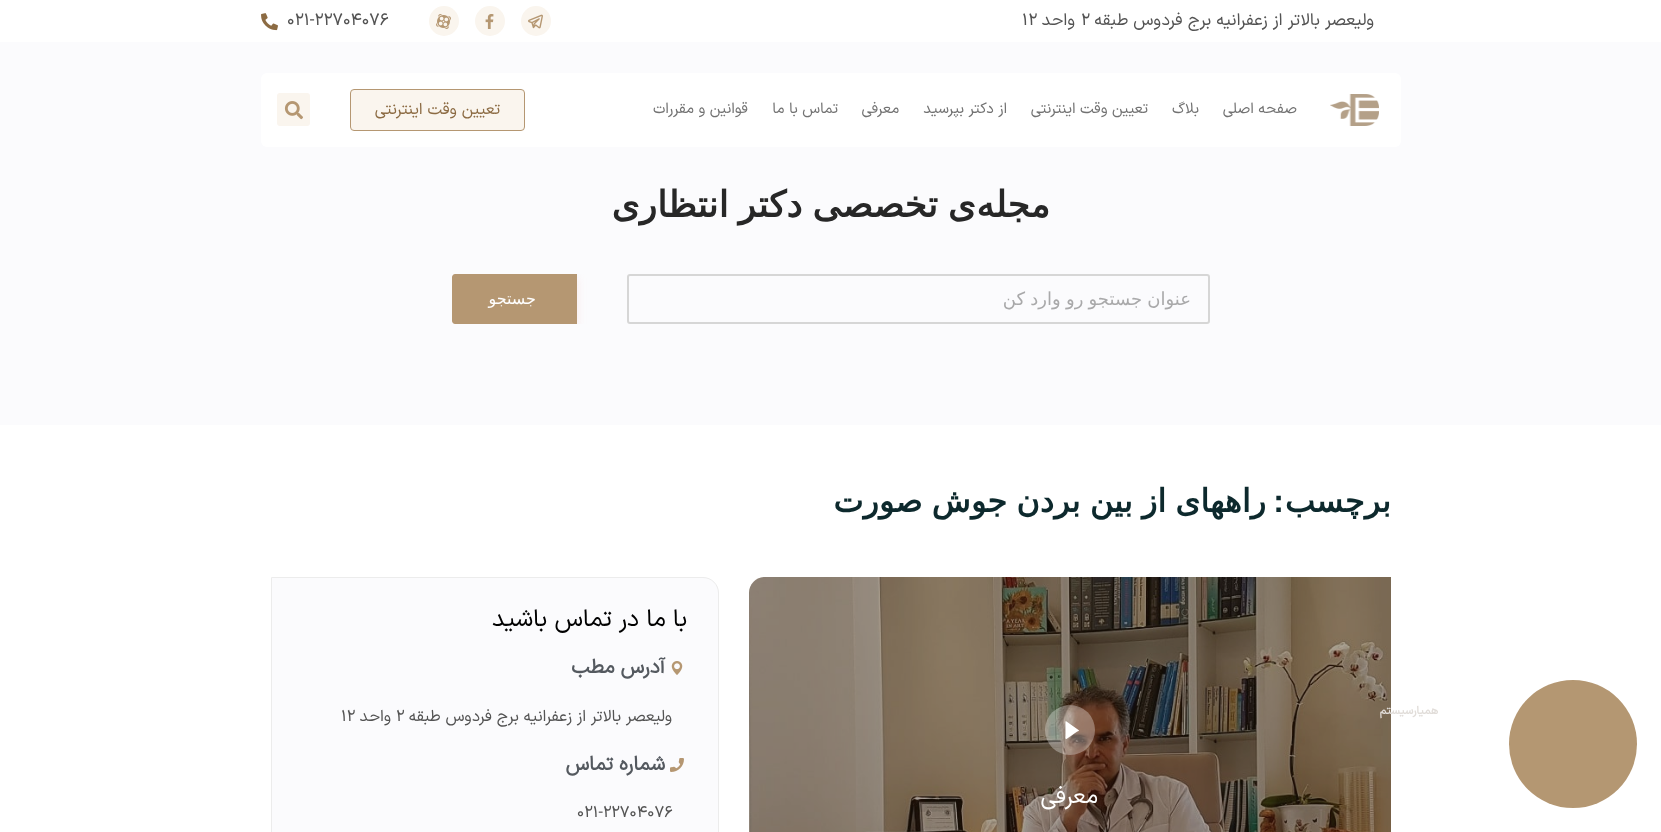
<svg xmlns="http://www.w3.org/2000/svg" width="1661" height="832">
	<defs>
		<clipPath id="clip1"><rect x="661" y="288" width="530" height="22" /></clipPath>
		<clipPath id="clip2"><rect x="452" y="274" width="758" height="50" rx="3" /></clipPath>
	</defs>
	<rect width="100%" height="100%" fill="#FFFFFF" />
	<rect x="0" y="42" width="1661" height="383" fill="#FBFBFD" />
	<text x="1374" y="25" font-family="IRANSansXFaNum" font-size="17" direction="rtl" fill="#535353">ولیعصر بالاتر از زعفرانیه برج فردوس طبقه</text>
	<text x="1081" y="25" font-family="IRANSansXFaNum" font-size="17" fill="#535353">۲</text>
	<text x="1075" y="25" font-family="IRANSansXFaNum" font-size="17" direction="rtl" fill="#535353">واحد</text>
	<text x="1022" y="25" font-family="IRANSansXFaNum" font-size="17" fill="#535353">۱۲</text>
	<circle cx="536" cy="21" r="15" fill="#FAF5EE" />
	<image x="528" y="14" width="15" height="15" href="assets/img1.png" />
	<circle cx="490" cy="21" r="15" fill="#FAF5EE" />
	<image x="485" y="14" width="9" height="15" href="assets/img2.png" />
	<circle cx="444" cy="21" r="15" fill="#FAF5EE" />
	<image x="436" y="14" width="15" height="15" href="assets/img3.png" />
	<text x="287" y="25" font-family="IRANSansXFaNum" font-size="17" fill="#535353">۰۲۱-۲۲۷۰۴۰۷۶</text>
	<image x="261" y="13" width="17" height="18" href="assets/img4.png" />
	<rect x="261" y="73" width="1140" height="74" rx="6" fill="#FFFFFF" />
	<image x="1330" y="94" width="49" height="32" href="assets/img5.png" />
	<g font-family="IRANSansXFaNum" font-size="15" direction="rtl" fill="#727272">
		<text x="1297" y="113">صفحه اصلی</text>
		<text x="1199" y="113">بلاگ</text>
		<text x="1148" y="113">تعیین وقت اینترنتی</text>
		<text x="1007" y="113">از دکتر بپرسید</text>
		<text x="899" y="113">معرفی</text>
		<text x="838" y="113">تماس با ما</text>
		<text x="748" y="113">قوانین و مقررات</text>
	</g>
	<rect x="350.5" y="89.5" width="174" height="41" rx="3.5" fill="#FAF5EE" stroke="#B59772" />
	<text x="500" y="114" font-family="IRANSansXFaNum" font-size="16" direction="rtl" fill="#8C6B43">تعیین وقت اینترنتی</text>
	<rect x="277" y="93" width="33" height="33" rx="3" fill="#FAF5EE" />
	<image x="284" y="101" width="19" height="19" href="assets/img6.png" />
	<circle cx="1573" cy="744" r="64" fill="#B49772" />
	<image x="749" y="577" width="642" height="255" href="assets/img7.png" />
	<path d="M765 577H1391V832C1391 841 1384 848 1375 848H765C756 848 749 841 749 832V593C749 584 756 577 765 577Z" fill="#2B1D0C" fill-opacity="0.4" />
	<text x="1438" y="714" font-family="IRANSansXFaNum" font-size="11.5" font-weight="700" direction="rtl" fill="#E1DDD9">همیارسیستم</text>
	<g font-family="DejaVu Sans" font-size="36" font-weight="700" direction="rtl" fill="#272727">
		<text x="1050" y="217">مجله</text>
		<text x="976" y="217" word-spacing="-1.5">ی تخصصی دکتر انتظاری</text>
	</g>
	<rect x="628" y="275" width="581" height="48" rx="2" fill="none" stroke="#D6D6D6" stroke-width="2" />
	<g clip-path="url(#clip1)">
		<text x="1191" y="305" word-spacing="-0.5" font-family="DejaVu Sans" font-size="18" direction="rtl" fill="#A9A9AA">عنوان جستجو رو وارد کن</text>
	</g>
	<g clip-path="url(#clip2)">
		<rect x="452" y="278" width="125" height="50" fill="#F7A299" fill-opacity="0.2" filter="blur(5px)" />
	</g>
	<path d="M455 274H577V324H455C453.5 324 452 322.5 452 321V277C452 275.5 453.5 274 455 274Z" fill="#B59772" />
	<text x="536" y="304" font-family="DejaVu Sans" font-size="16" direction="rtl" fill="#FFFFFF">جستجو</text>
	<text x="1391" y="512" font-family="DejaVu Sans" font-size="32" font-weight="700" direction="rtl" fill="#0D292D">برچسب</text>
	<text x="1284" y="512" font-family="Liberation Sans" font-size="32" font-weight="700" direction="rtl" fill="#0D292D">:</text>
	<text x="1266" y="512" word-spacing="-1" font-family="DejaVu Sans" font-size="32" font-weight="700" direction="rtl" fill="#0D292D">راههای از بین بردن جوش صورت</text>
	<circle cx="1070" cy="730" r="25" fill="#FFFFFF" fill-opacity="0.32" />
	<path d="M1078.5 730H1079C1079 731 1077.5 731.5 1076.5 732L1066.5 739H1066C1065 738.5 1065.5 737 1065.5 736V721.5C1065.5 721.5 1066 721 1066.5 721.5Z" fill="#FFFFFF" />
	<text x="1098" y="803" font-family="IRANSansXFaNum" font-size="23" direction="rtl" fill="#FFFFFF">معرفی</text>
	<path d="M271.5 577.5H703C711.5 577.5 718.5 584.5 718.5 593V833C718.5 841.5 711.5 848.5 703 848.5H287C278.5 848.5 271.5 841.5 271.5 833Z" fill="#FBFBFD" stroke="#ECECEC" />
	<text x="687" y="626" font-family="IRANSansXFaNum" font-size="24" direction="rtl" fill="#000000">با ما در تماس باشید</text>
	<image x="671" y="661" width="12" height="14" href="assets/img8.png" />
	<text x="665" y="673" font-family="IRANSansXFaNum" font-size="20" font-weight="700" direction="rtl" fill="#54595F">آدرس مطب</text>
	<text x="672" y="721" font-family="IRANSansXFaNum" font-size="16" direction="rtl" fill="#535353">ولیعصر بالاتر از زعفرانیه برج فردوس طبقه</text>
	<text x="396" y="721" font-family="IRANSansXFaNum" font-size="16" fill="#535353">۲</text>
	<text x="391" y="721" font-family="IRANSansXFaNum" font-size="16" direction="rtl" fill="#535353">واحد</text>
	<text x="341" y="721" font-family="IRANSansXFaNum" font-size="16" fill="#535353">۱۲</text>
	<image x="670" y="758" width="14" height="14" href="assets/img9.png" />
	<text x="665" y="770" font-family="IRANSansXFaNum" font-size="20" font-weight="700" direction="rtl" fill="#54595F">شماره تماس</text>
	<text x="577" y="817" font-family="IRANSansXFaNum" font-size="16" fill="#535353">021-22704076</text>
</svg>
